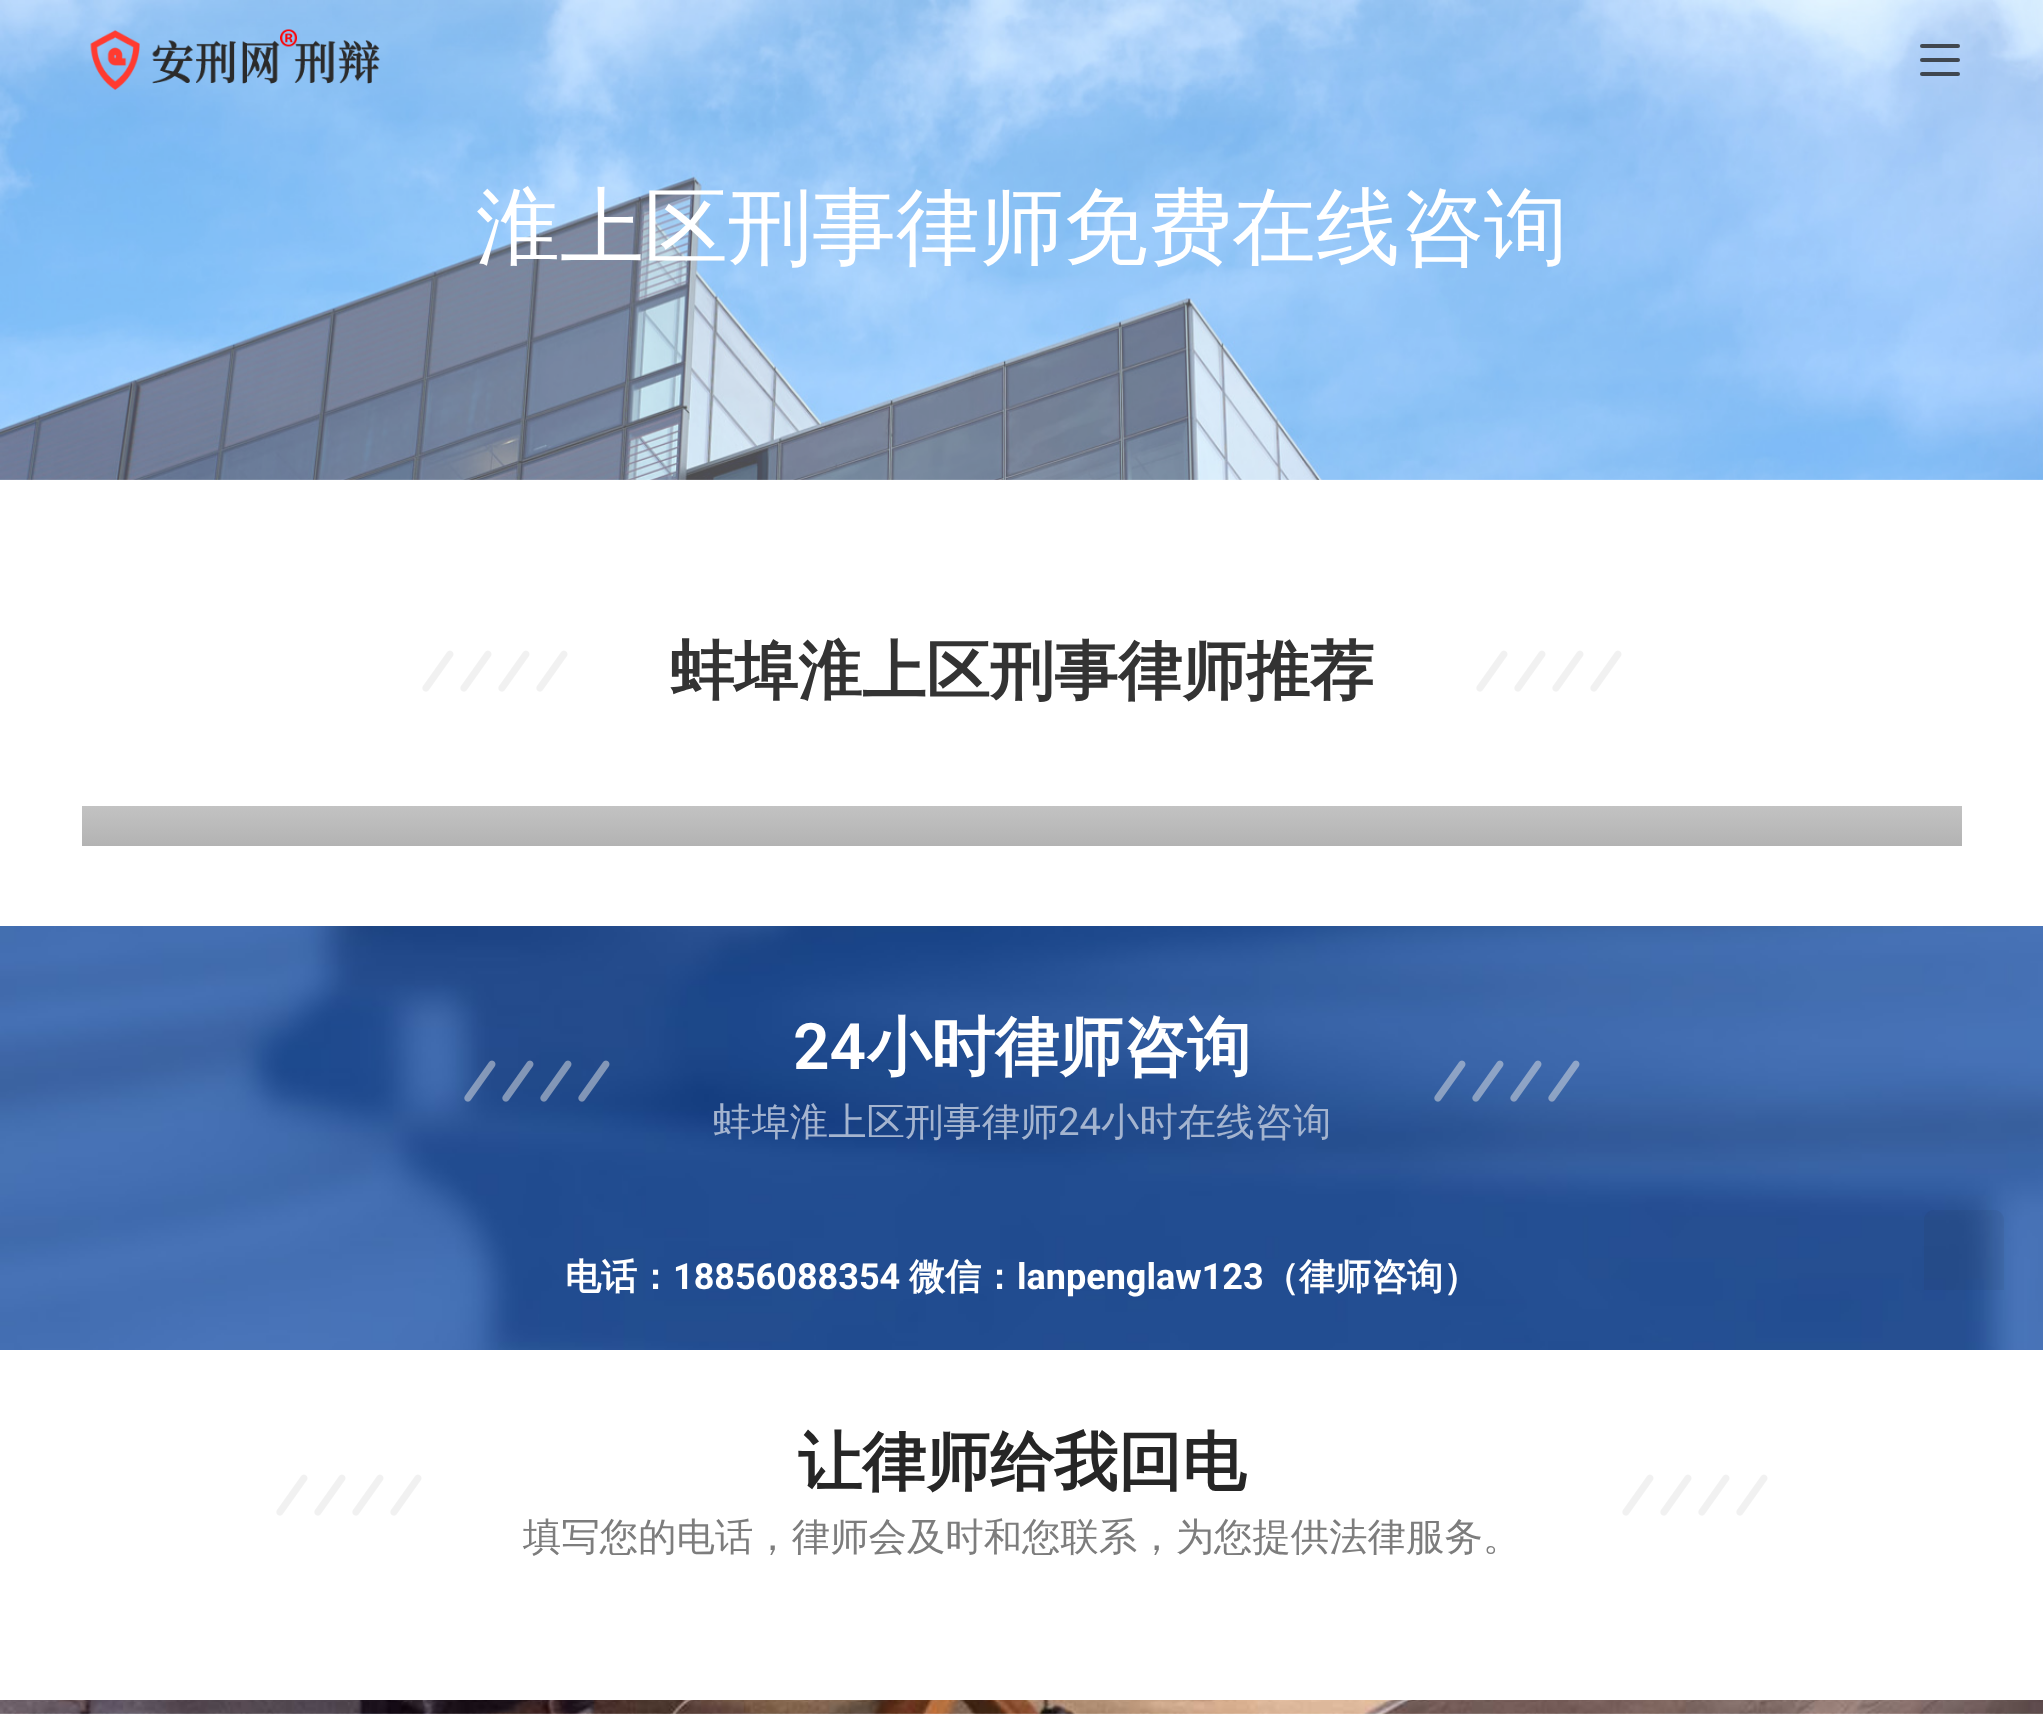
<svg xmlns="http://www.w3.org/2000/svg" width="2043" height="1714">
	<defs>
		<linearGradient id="g1" gradientUnits="userSpaceOnUse" x1="317" y1="648" x2="317" y2="846"><stop offset="0" stop-color="#FFFFFF" /><stop offset="1" stop-color="#B3B3B3" /></linearGradient>
		<linearGradient id="g2" gradientUnits="userSpaceOnUse" x1="787" y1="648" x2="787" y2="846"><stop offset="0" stop-color="#FFFFFF" /><stop offset="1" stop-color="#B3B3B3" /></linearGradient>
		<linearGradient id="g3" gradientUnits="userSpaceOnUse" x1="1257" y1="648" x2="1257" y2="846"><stop offset="0" stop-color="#FFFFFF" /><stop offset="1" stop-color="#B3B3B3" /></linearGradient>
		<linearGradient id="g4" gradientUnits="userSpaceOnUse" x1="1727" y1="648" x2="1727" y2="846"><stop offset="0" stop-color="#FFFFFF" /><stop offset="1" stop-color="#B3B3B3" /></linearGradient>
	</defs>
	<rect width="100%" height="100%" fill="#FFFFFF" />
	<image x="0" y="0" width="2043" height="480" href="assets/img2.png" />
	<image x="90" y="29" width="290" height="61" href="assets/img1.png" />
	<rect x="1920" y="44" width="40" height="4" rx="2" fill="#262626" fill-opacity="0.8" />
	<rect x="1920" y="58" width="40" height="4" rx="2" fill="#262626" fill-opacity="0.8" />
	<rect x="1920" y="72" width="40" height="4" rx="2" fill="#262626" fill-opacity="0.8" />
	<text x="476" y="256" font-family="WenQuanYi Zen Hei" font-size="84" font-weight="500" fill="#FFFFFF">淮上区刑事律师免费在线咨询</text>
	<image x="422" y="650" width="146" height="42" href="assets/img3.png" />
	<text x="670" y="693" font-family="WenQuanYi Zen Hei" font-size="64" font-weight="700" fill="#333333">蚌埠淮上区刑事律师推荐</text>
	<image x="1476" y="650" width="146" height="42" href="assets/img3.png" />
	<rect x="82" y="806" width="470" height="40" fill="url(#g1)" />
	<rect x="552" y="806" width="470" height="40" fill="url(#g2)" />
	<rect x="1022" y="806" width="470" height="40" fill="url(#g3)" />
	<rect x="1492" y="806" width="470" height="40" fill="url(#g4)" />
	<image x="0" y="926" width="2043" height="424" href="assets/img4.png" />
	<image x="464" y="1060" width="146" height="42" href="assets/img5.png" />
	<text x="793" y="1069" font-family="Roboto" font-size="64" font-weight="600" fill="#FFFFFF">24</text>
	<text x="867" y="1069" font-family="WenQuanYi Zen Hei" font-size="64" font-weight="700" fill="#FFFFFF">小时律师咨询</text>
	<image x="1434" y="1060" width="146" height="42" href="assets/img6.png" />
	<text x="713" y="1135" font-family="WenQuanYi Zen Hei" font-size="38.4" font-weight="500" fill="#A4B4CF">蚌埠淮上区刑事律师</text>
	<text x="1058" y="1135" font-family="Roboto" font-size="38.4" fill="#A4B4CF">24</text>
	<text x="1101" y="1135" font-family="WenQuanYi Zen Hei" font-size="38.4" font-weight="500" fill="#A4B4CF">小时在线咨询</text>
	<text x="565" y="1289" font-family="WenQuanYi Zen Hei" font-size="36" font-weight="700" fill="#FFFFFF">电话：</text>
	<text x="673" y="1289" font-family="Roboto" font-size="36" font-weight="700" fill="#FFFFFF">18856088354</text>
	<text x="909" y="1289" font-family="WenQuanYi Zen Hei" font-size="36" font-weight="700" fill="#FFFFFF">微信：</text>
	<text x="1017" y="1289" font-family="Roboto" font-size="36" font-weight="700" fill="#FFFFFF">lanpenglaw123</text>
	<text x="1263" y="1289" font-family="WenQuanYi Zen Hei" font-size="36" font-weight="700" fill="#FFFFFF">（律师咨询）</text>
	<image x="276" y="1474" width="146" height="42" href="assets/img3.png" />
	<text x="798" y="1484" font-family="WenQuanYi Zen Hei" font-size="64" font-weight="700" fill="#262626">让律师给我回电</text>
	<image x="1622" y="1474" width="146" height="42" href="assets/img3.png" />
	<text x="523" y="1550" font-family="WenQuanYi Zen Hei" font-size="38.4" font-weight="500" fill="#7D7D7D">填写您的电话，律师会及时和您联系，为您提供法律服务。</text>
	<image x="0" y="1700" width="2043" height="14" href="assets/img7.png" />
	<path d="M1934 1210H1994C1999.5 1210 2004 1214.5 2004 1220V1290H1924V1220C1924 1214.5 1928.5 1210 1934 1210Z" fill="#262626" fill-opacity="0.07" />
</svg>
